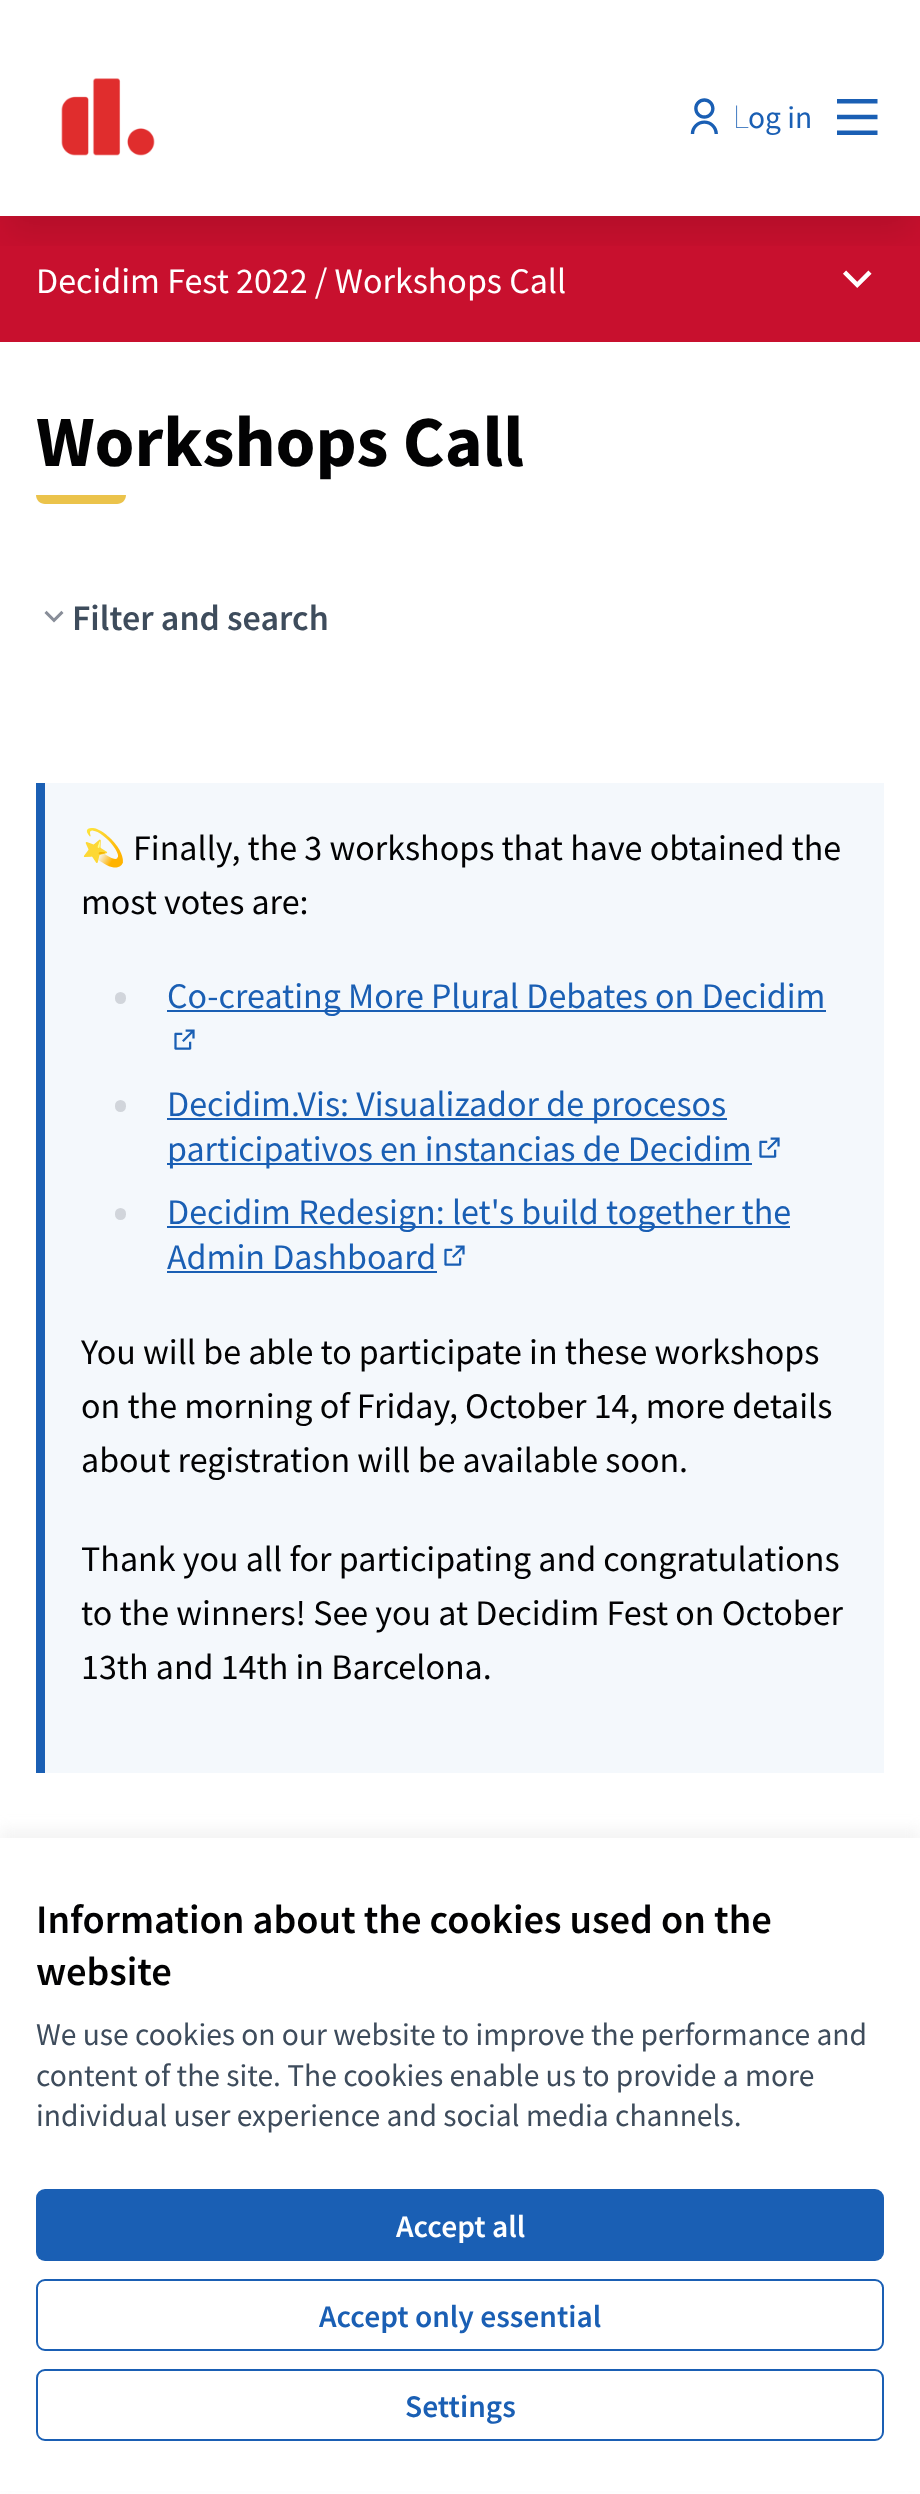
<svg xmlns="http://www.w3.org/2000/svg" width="920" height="2494">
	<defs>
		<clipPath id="clip1"><rect x="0" y="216" width="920" height="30" /></clipPath>
	</defs>
	<rect width="100%" height="100%" fill="#FFFFFF" />
	<rect x="0" y="216" width="920" height="126" fill="#C8102E" />
	<image x="843" y="270" width="29" height="18" href="assets/img4.png" />
	<g clip-path="url(#clip1)">
		<rect x="7" y="29" width="907" height="203" fill="#000000" fill-opacity="0.1" filter="blur(17px)" />
	</g>
	<image x="61" y="78" width="94" height="78" href="assets/img1.png" />
	<image x="690" y="98" width="28" height="36" href="assets/img2.png" />
	<text x="733" y="128" font-family="Noto Sans" font-size="31.5" font-weight="100" fill="#1A5FB4">L</text>
	<text x="748" y="128" font-family="Source Sans Pro" font-size="31.5" fill="#1A5FB4">og in</text>
	<image x="837" y="99" width="41" height="36" href="assets/img3.png" />
	<text x="36" y="293" font-family="Source Sans Pro" font-size="36" fill="#FFFFFF">Decidim Fest 2022 / Workshops Call</text>
	<text x="36" y="466" font-family="Source Sans Pro" font-size="72" font-weight="700" fill="#020203">Workshops Call</text>
	<path d="M36 495H126C126 500 122 504 117 504H45C40 504 36 500 36 495Z" fill="#EBC34B" />
	<image x="44" y="610" width="20" height="13" href="assets/img5.png" />
	<text x="72" y="630" font-family="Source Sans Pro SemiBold" font-size="36" font-weight="600" fill="#3E4C5C">Filter and search</text>
	<rect x="45" y="783" width="839" height="990" fill="#F4F8FC" />
	<rect x="36" y="783" width="9" height="990" fill="#1A5FB4" />
	<text x="81" y="860" font-family="Noto Color Emoji" font-size="36" fill="#020203">💫</text>
	<g font-family="Source Sans Pro" font-size="36" fill="#020203">
		<text x="133" y="860">Finally, the 3 workshops that have obtained the</text>
		<text x="81" y="914">most votes are:</text>
	</g>
	<rect x="115" y="992" width="11" height="12" rx="5.5" fill="#D1D5DB" />
	<rect x="167" y="1010" width="659" height="2" fill="#1A5FB4" />
	<text x="167" y="1008" font-family="Source Sans Pro" font-size="36" fill="#1A5FB4">Co-creating More Plural Debates on Decidim</text>
	<image x="174" y="1029" width="21" height="21" href="assets/img6.png" />
	<rect x="115" y="1100" width="11" height="12" rx="5.5" fill="#D1D5DB" />
	<rect x="167" y="1118" width="560" height="2" fill="#1A5FB4" />
	<text x="167" y="1116" font-family="Source Sans Pro" font-size="36" fill="#1A5FB4">Decidim.Vis: Visualizador de procesos</text>
	<rect x="167" y="1163" width="585" height="2" fill="#1A5FB4" />
	<text x="167" y="1161" font-family="Source Sans Pro" font-size="36" fill="#1A5FB4">participativos en instancias de Decidim</text>
	<image x="759" y="1137" width="21" height="21" href="assets/img7.png" />
	<rect x="115" y="1208" width="11" height="12" rx="5.5" fill="#D1D5DB" />
	<rect x="167" y="1226" width="623" height="2" fill="#1A5FB4" />
	<g font-family="Source Sans Pro" font-size="36" fill="#1A5FB4">
		<text x="167" y="1224">Decidim Redesign: let's build together the</text>
		<text x="167" y="1269">Admin Dashboard</text>
	</g>
	<rect x="167" y="1271" width="270" height="2" fill="#1A5FB4" />
	<image x="444" y="1245" width="21" height="21" href="assets/img6.png" />
	<g font-family="Source Sans Pro" font-size="36" fill="#020203">
		<text x="81" y="1364">You will be able to participate in these workshops</text>
		<text x="81" y="1418">on the morning of Friday, October 14, more details</text>
		<text x="81" y="1472">about registration will be available soon.</text>
		<text x="81" y="1571">Thank you all for participating and congratulations</text>
		<text x="81" y="1625">to the winners! See you at Decidim Fest on October</text>
		<text x="81" y="1679">13th and 14th in Barcelona.</text>
	</g>
	<rect x="0" y="1829" width="920" height="657" fill="#D3D3D3" fill-opacity="0.25" filter="blur(7px)" />
	<rect x="0" y="1838" width="920" height="653" fill="#FFFFFF" />
	<g font-family="Source Sans Pro SemiBold" font-size="40.5" font-weight="600" fill="#020203">
		<text x="36" y="1933">Information about the cookies used on the</text>
		<text x="36" y="1985">website</text>
	</g>
	<g font-family="Source Sans Pro" font-size="31.5" fill="#3E4C5C">
		<text x="36" y="2045">We use cookies on our website to improve the performance and</text>
		<text x="36" y="2086">content of the site. The cookies enable us to provide a more</text>
		<text x="36" y="2126">individual user experience and social media channels.</text>
	</g>
	<rect x="36" y="2189" width="848" height="72" rx="9" fill="#1A5FB4" />
	<text x="396" y="2237" font-family="Source Sans Pro SemiBold" font-size="31.5" font-weight="600" fill="#FFFFFF">Accept all</text>
	<rect x="37" y="2280" width="846" height="70" rx="8" fill="none" stroke="#1A5FB4" stroke-width="2" />
	<text x="319" y="2327" font-family="Source Sans Pro SemiBold" font-size="31.5" font-weight="600" fill="#1A5FB4">Accept only essential</text>
	<rect x="37" y="2370" width="846" height="70" rx="8" fill="none" stroke="#1A5FB4" stroke-width="2" />
	<text x="405" y="2417" font-family="Source Sans Pro SemiBold" font-size="31.5" font-weight="600" fill="#1A5FB4">Settings</text>
</svg>
